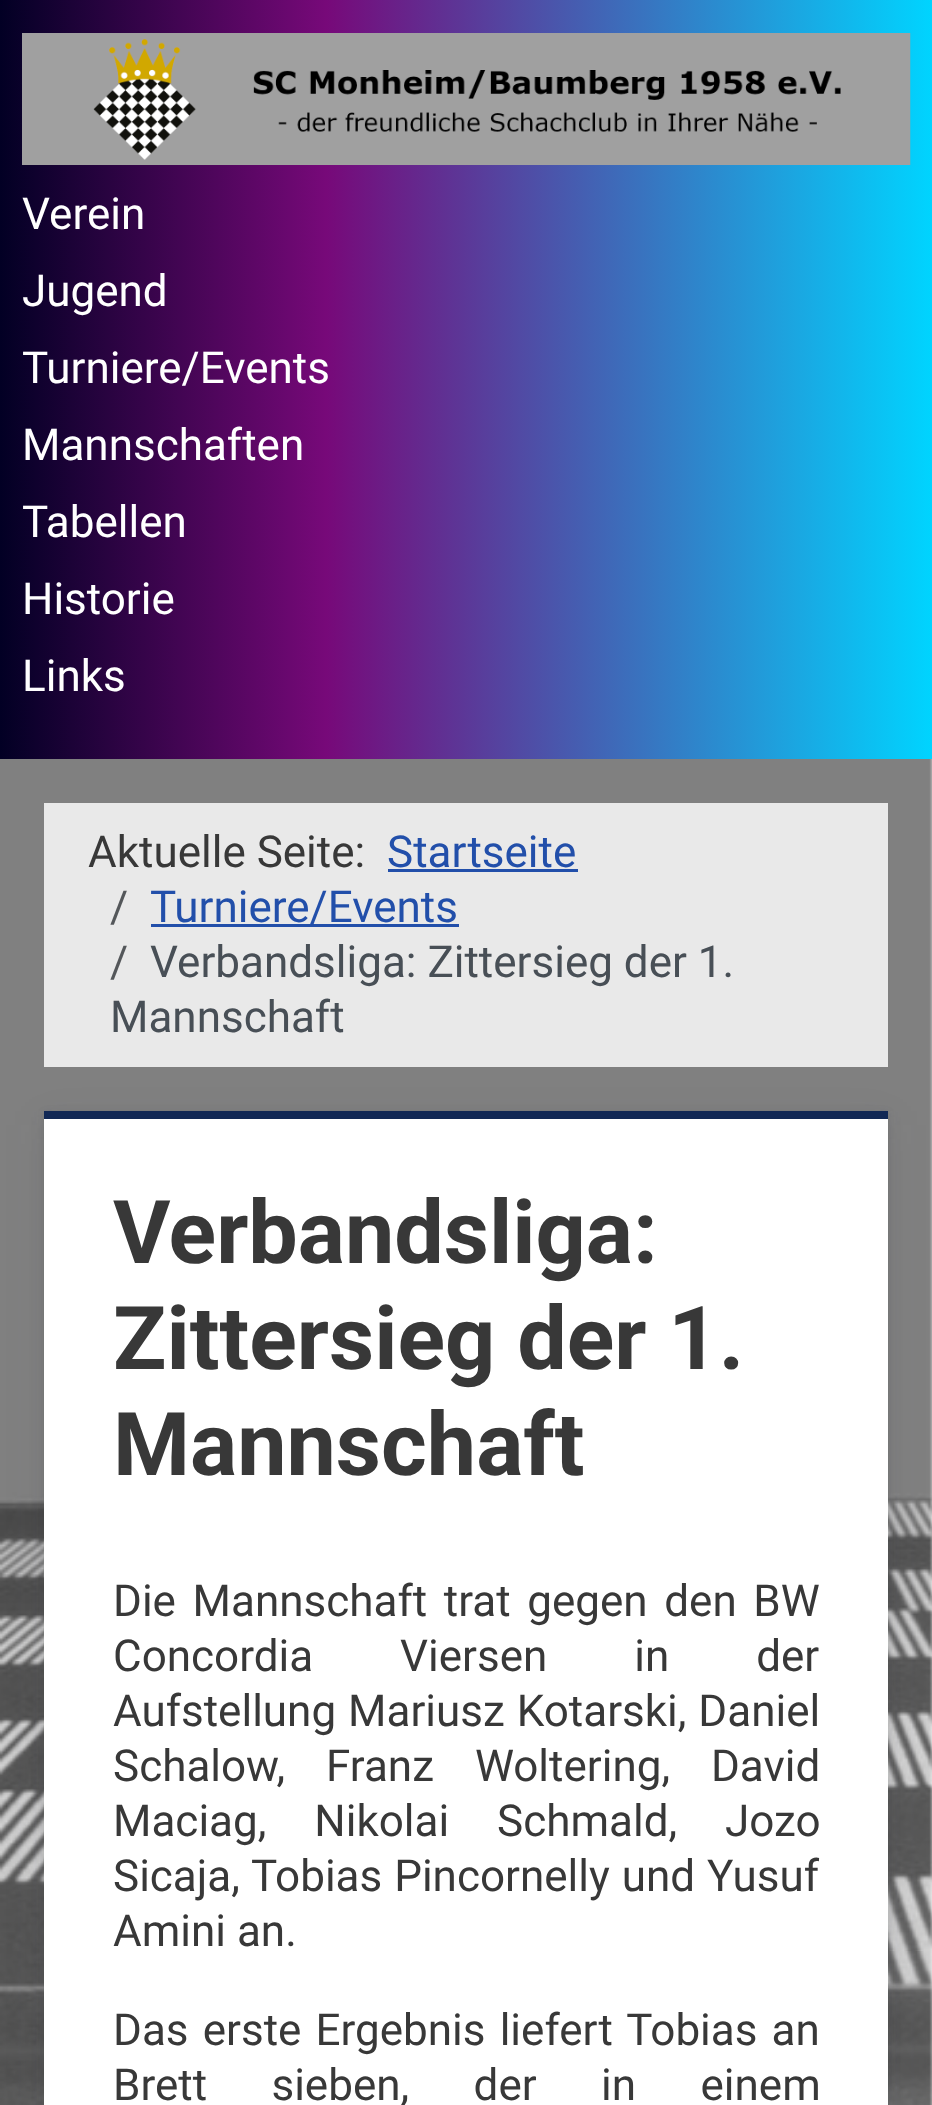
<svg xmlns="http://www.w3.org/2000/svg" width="932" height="2105">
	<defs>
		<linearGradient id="g1" gradientUnits="userSpaceOnUse" x1="0" y1="380" x2="932" y2="380"><stop offset="0" stop-color="#020024" /><stop offset="0.35" stop-color="#770979" /><stop offset="1" stop-color="#00D4FF" /></linearGradient>
	</defs>
	<rect width="100%" height="100%" fill="#FFFFFF" />
	<image x="0" y="759" width="932" height="1346" href="assets/img1.png" />
	<rect x="0" y="0" width="932" height="759" fill="url(#g1)" />
	<image x="22" y="33" width="889" height="132" href="assets/img2.png" />
	<g font-family="Roboto" font-size="44" fill="#FFFFFF">
		<text x="22" y="229">Verein</text>
		<text x="22" y="306">Jugend</text>
		<text x="22" y="383">Turniere/Events</text>
		<text x="22" y="460">Mannschaften</text>
		<text x="22" y="537">Tabellen</text>
		<text x="22" y="614">Historie</text>
		<text x="22" y="691">Links</text>
	</g>
	<rect x="44" y="1125" width="844" height="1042" fill="#333942" fill-opacity="0.08" filter="blur(20.5px)" />
	<rect x="44" y="803" width="844" height="264" fill="#E9E9E9" />
	<text x="88" y="867" font-family="Roboto" font-size="44" fill="#383838">Aktuelle Seite:</text>
	<text x="387" y="867" font-family="Roboto" font-size="44" fill="#224FAA">Startseite</text>
	<rect x="388" y="869" width="190" height="3" fill="#224FAA" />
	<text x="110" y="922" font-family="Roboto" font-size="44" fill="#54575A">/</text>
	<rect x="151" y="924" width="308" height="3" fill="#224FAA" />
	<text x="150" y="922" font-family="Roboto" font-size="44" fill="#224FAA">Turniere/Events</text>
	<text x="110" y="977" font-family="Roboto" font-size="44" fill="#54575A">/</text>
	<g font-family="Roboto" font-size="44" fill="#484F56">
		<text x="150" y="977">Verbandsliga: Zittersieg der 1.</text>
		<text x="110" y="1032">Mannschaft</text>
	</g>
	<rect x="44" y="1117" width="844" height="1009" fill="#333942" fill-opacity="0.08" filter="blur(7px)" />
	<rect x="44" y="1111" width="844" height="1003" fill="#333942" fill-opacity="0.1" filter="blur(3px)" />
	<rect x="44" y="1119" width="844" height="986" fill="#FFFFFF" />
	<rect x="44" y="1111" width="844" height="8" fill="#112855" />
	<g font-family="Roboto" font-size="88" font-weight="700" fill="#383838">
		<text x="113" y="1263">Verbandsliga:</text>
		<text x="113" y="1369">Zittersieg der 1.</text>
		<text x="113" y="1475">Mannschaft</text>
	</g>
	<g font-family="Roboto" font-size="44" fill="#383838">
		<text x="113" y="1616" word-spacing="5.75">Die Mannschaft trat gegen den BW</text>
		<text x="113" y="1671" word-spacing="76">Concordia Viersen in der</text>
		<text x="113" y="1726" word-spacing="1">Aufstellung Mariusz Kotarski, Daniel</text>
		<text x="113" y="1781" word-spacing="30">Schalow, Franz Woltering, David</text>
		<text x="113" y="1836" word-spacing="37">Maciag, Nikolai Schmald, Jozo</text>
		<text x="113" y="1891" word-spacing="1">Sicaja, Tobias Pincornelly und Yusuf</text>
		<text x="113" y="1946">Amini an.</text>
		<text x="113" y="2045" word-spacing="3.25">Das erste Ergebnis liefert Tobias an</text>
		<text x="113" y="2100" word-spacing="53.5">Brett sieben, der in einem</text>
	</g>
</svg>
